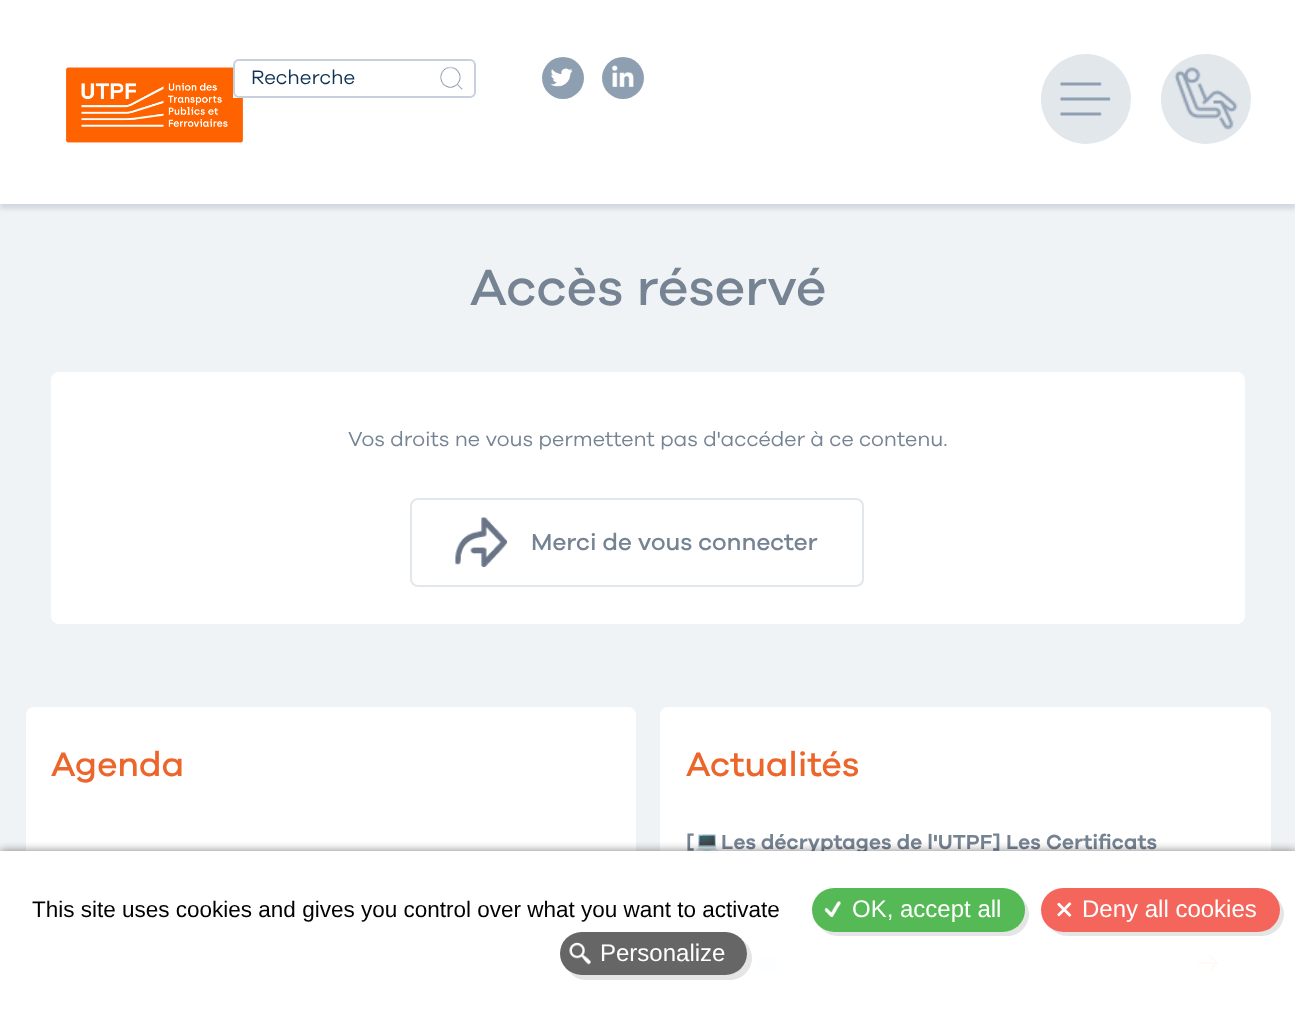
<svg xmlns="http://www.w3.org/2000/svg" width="1295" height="1017">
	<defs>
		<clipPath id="clip1"><rect x="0" y="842" width="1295" height="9" /></clipPath>
	</defs>
	<rect width="100%" height="100%" fill="#F0F3F5" />
	<rect x="0" y="5" width="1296" height="204" fill="#8F9FB2" fill-opacity="0.3" filter="blur(2px)" />
	<rect x="0" y="0" width="1295" height="204" fill="#FFFFFF" />
	<image x="66" y="67" width="177" height="76" href="assets/img1.png" />
	<rect x="233" y="67" width="10" height="31" fill="#FFFFFF" />
	<rect x="234" y="60" width="241" height="37" rx="5" fill="none" stroke="#C7D1DD" stroke-width="2" />
	<text x="251" y="84" font-family="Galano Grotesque" font-size="20" fill="#0F3255">Recherche</text>
	<image x="440" y="66" width="23" height="24" href="assets/img2.png" />
	<circle cx="563" cy="78" r="21" fill="#8F9FB2" />
	<image x="550" y="68" width="23" height="19" href="assets/img3.png" />
	<circle cx="623" cy="78" r="21" fill="#8F9FB2" />
	<image x="612" y="65" width="22" height="22" href="assets/img4.png" />
	<circle cx="1206" cy="99" r="45" fill="#E2E7EB" />
	<image x="1174" y="67" width="64" height="63" href="assets/img5.png" />
	<circle cx="1086" cy="99" r="45" fill="#E2E7EB" />
	<image x="1060" y="82" width="51" height="34" href="assets/img6.png" />
	<text x="470" y="305" font-family="Galano Grotesque" font-size="52.5" font-weight="500" fill="#768393">Accès réservé</text>
	<rect x="51" y="372" width="1194" height="252" rx="8" fill="#FFFFFF" />
	<text x="348" y="446" font-family="Galano Grotesque" font-size="21" fill="#768393">Vos droits ne vous permettent pas d'accéder à ce contenu.</text>
	<rect x="411" y="499" width="452" height="87" rx="7" fill="none" stroke="#E2E7EB" stroke-width="2" />
	<image x="455" y="517" width="53" height="51" href="assets/img7.png" />
	<text x="531" y="550" font-family="Galano Grotesque" font-size="24" font-weight="500" fill="#768393">Merci de vous connecter</text>
	<rect x="26" y="707" width="610" height="300" rx="8" fill="#FFFFFF" />
	<text x="51" y="776" font-family="Galano Grotesque" font-size="35" font-weight="500" fill="#EC662C">Agenda</text>
	<rect x="660" y="707" width="611" height="300" rx="8" fill="#FFFFFF" />
	<text x="686" y="776" font-family="Galano Grotesque" font-size="35" font-weight="500" fill="#EC662C">Actualités</text>
	<text x="686" y="849" font-family="Galano Grotesque" font-size="21" font-weight="600" fill="#768393">[</text>
	<text x="694" y="849" font-family="Noto Color Emoji" font-size="21" fill="#768393">💻</text>
	<text x="721" y="849" font-family="Galano Grotesque" font-size="21" font-weight="600" fill="#768393">Les décryptages de l'UTPF] Les Certificats</text>
	<rect x="758" y="954" width="19" height="20" rx="9.5" fill="#D9E3EF" />
	<image x="1198" y="955" width="20" height="16" href="assets/img8.png" />
	<g clip-path="url(#clip1)">
		<rect x="0" y="851" width="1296" height="166" fill="#000000" fill-opacity="0.5" filter="blur(5px)" />
	</g>
	<rect x="0" y="851" width="1295" height="166" fill="#FFFFFF" fill-opacity="0.95" />
	<text x="32" y="917" font-family="Liberation Sans" font-size="22.5" fill="#000000">This site uses cookies and gives you control over what you want to activate</text>
	<path d="M820 927C824 932 830 936 838 936H1008C1019 936 1029 926 1029 914C1029 908 1026 902 1021 898C1023 901 1024 905 1024 910C1024 922 1015 932 1003 932H833C828 932 824 930 820 927Z" fill="#E5E5E5" />
	<rect x="812" y="888" width="213" height="44" rx="22" fill="#2AA82A" fill-opacity="0.8" />
	<image x="824" y="901" width="17" height="16" href="assets/img9.png" />
	<text x="852" y="917" font-family="Liberation Sans" font-size="24" fill="#FFFFFF">OK, accept all</text>
	<path d="M1051 928C1055 933 1061 936 1068 936H1262C1274 936 1284 926 1284 914C1284 908 1281 902 1276 898C1278 901 1280 905 1280 910C1280 922 1270 932 1258 932H1063C1058 932 1054 930 1051 928Z" fill="#E5E5E5" />
	<rect x="1041" y="888" width="239" height="44" rx="22" fill="#EF2416" fill-opacity="0.7" />
	<image x="1057" y="902" width="15" height="15" href="assets/img10.png" />
	<text x="1082" y="917" font-family="Liberation Sans" font-size="24" fill="#FFFFFF">Deny all cookies</text>
	<path d="M568 970C572 976 578 980 586 980H730C742 980 752 970 752 958C752 950 748 944 742 940C745 943 747 948 747 953C747 965 737 975 725 975H581C576 975 571 973 568 970Z" fill="#E5E5E5" />
	<rect x="560" y="932" width="187" height="43" rx="21.5" fill="#666666" />
	<image x="569" y="942" width="22" height="23" href="assets/img11.png" />
	<text x="600" y="961" font-family="Liberation Sans" font-size="24" fill="#FFFFFF">Personalize</text>
</svg>
